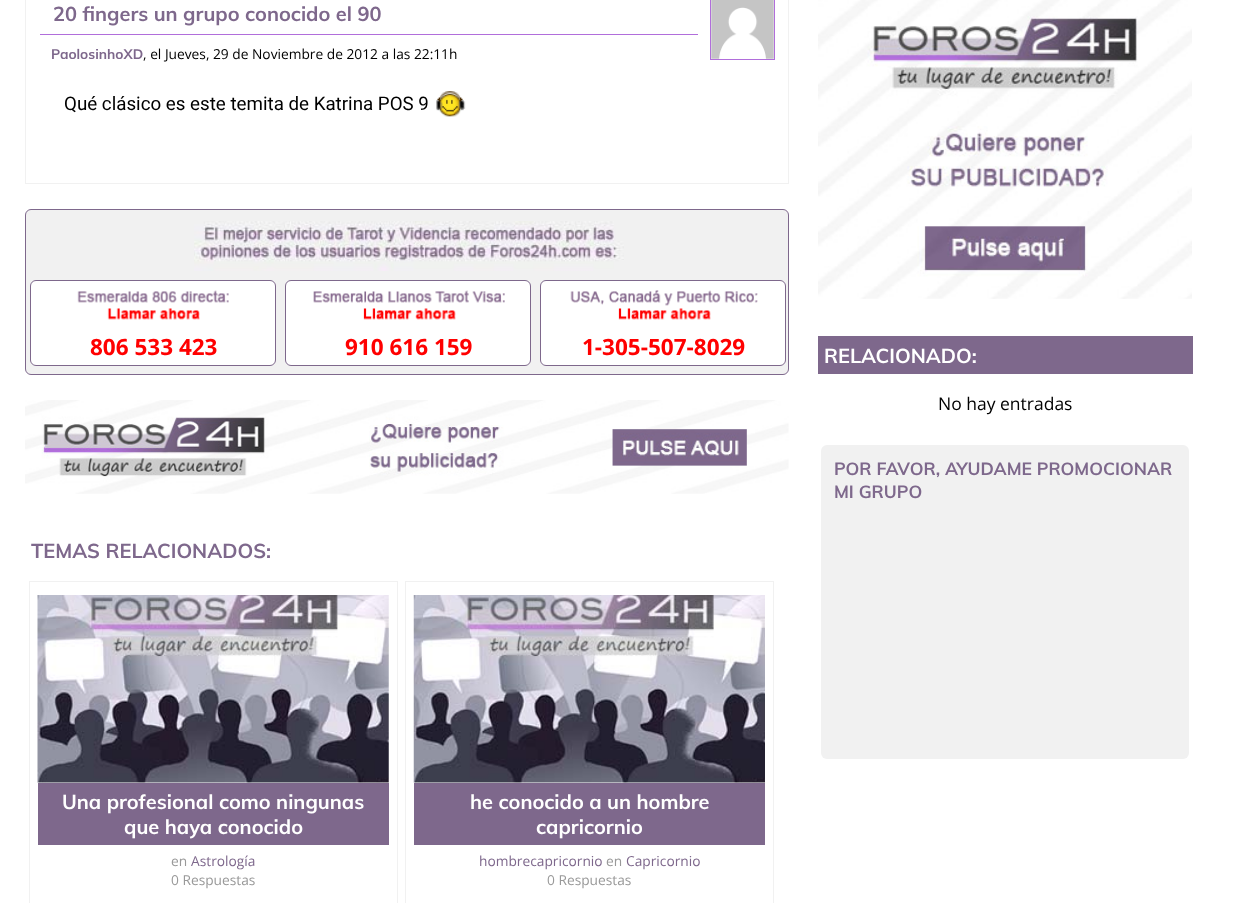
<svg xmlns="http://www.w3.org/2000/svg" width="1251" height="903">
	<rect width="100%" height="100%" fill="#FFFFFF" />
	<rect x="25.5" y="-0.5" width="763" height="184" fill="none" stroke="#F1F1F1" />
	<rect x="39" y="34" width="659" height="1" fill="#B16EDB" />
	<rect x="39" y="34" width="1" height="1" fill="#FFFFFF" />
	<text x="53" y="21" font-family="Muli" font-size="20" font-weight="700" fill="#7E688C">20 fingers un grupo conocido el 90</text>
	<rect x="710.5" y="-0.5" width="64" height="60" fill="none" stroke="#B16EDB" />
	<image x="711" y="0" width="63" height="59" href="assets/img1.png" />
	<text x="51" y="59" font-family="Muli" font-size="13.75" font-weight="700" fill="#7E688C">PaolosinhoXD</text>
	<text x="143" y="59" font-family="Open Sans" font-size="13.75" fill="#000000">, el Jueves, 29 de Noviembre de 2012 a las 22:11h</text>
	<text x="64" y="110" font-family="Roboto" font-size="18.75" fill="#000000">Qué clásico es este temita de Katrina POS 9</text>
	<image x="436" y="91" width="30" height="26" href="assets/img2.png" />
	<rect x="25.5" y="209.5" width="763" height="165" rx="5.5" fill="#F1F1F1" stroke="#7E688C" />
	<image x="194" y="221" width="430" height="50" href="assets/img3.png" />
	<rect x="30.5" y="280.5" width="245" height="85" rx="5.5" fill="#FFFFFF" stroke="#7E688C" />
	<image x="77" y="290" width="152" height="30" href="assets/img4.png" />
	<text x="90" y="355" font-family="Open Sans" font-size="22.5" font-weight="700" fill="#FF0000">806 533 423</text>
	<rect x="285.5" y="280.5" width="245" height="85" rx="5.5" fill="#FFFFFF" stroke="#7E688C" />
	<image x="313" y="290" width="192" height="30" href="assets/img5.png" />
	<text x="345" y="355" font-family="Open Sans" font-size="22.5" font-weight="700" fill="#FF0000">910 616 159</text>
	<rect x="540.5" y="280.5" width="245" height="85" rx="5.5" fill="#FFFFFF" stroke="#7E688C" />
	<image x="570" y="290" width="188" height="30" href="assets/img6.png" />
	<text x="582" y="355" font-family="Open Sans" font-size="22.5" font-weight="700" fill="#FF0000">1-305-507-8029</text>
	<image x="25" y="400" width="764" height="94" href="assets/img7.png" />
	<text x="31" y="558" font-family="Muli" font-size="20" font-weight="700" fill="#7E688C">TEMAS RELACIONADOS:</text>
	<rect x="29.5" y="581.5" width="368" height="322" fill="none" stroke="#F1F1F1" />
	<image x="37" y="595" width="352" height="188" href="assets/img8.png" />
	<rect x="38" y="783" width="351" height="62" fill="#7E688C" />
	<g font-family="Muli" font-size="20" font-weight="700" fill="#FFFFFF">
		<text x="62" y="809">Una profesional como ningunas</text>
		<text x="124" y="834">que haya conocido</text>
	</g>
	<text x="171" y="866" font-family="Open Sans" font-size="13.75" fill="#999999">en</text>
	<text x="191" y="866" font-family="Open Sans" font-size="13.75" fill="#7E688C">Astrología</text>
	<text x="171" y="885" font-family="Open Sans" font-size="13.75" fill="#999999">0 Respuestas</text>
	<rect x="405.5" y="581.5" width="368" height="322" fill="none" stroke="#F1F1F1" />
	<image x="413" y="595" width="352" height="188" href="assets/img9.png" />
	<rect x="414" y="783" width="351" height="62" fill="#7E688C" />
	<g font-family="Muli" font-size="20" font-weight="700" fill="#FFFFFF">
		<text x="470" y="809">he conocido a un hombre</text>
		<text x="536" y="834">capricornio</text>
	</g>
	<text x="479" y="866" font-family="Open Sans" font-size="13.75" fill="#7E688C">hombrecapricornio</text>
	<text x="606" y="866" font-family="Open Sans" font-size="13.75" fill="#999999">en</text>
	<text x="626" y="866" font-family="Open Sans" font-size="13.75" fill="#7E688C">Capricornio</text>
	<text x="547" y="885" font-family="Open Sans" font-size="13.75" fill="#999999">0 Respuestas</text>
	<image x="818" y="0" width="374" height="299" href="assets/img10.png" />
	<rect x="818" y="336" width="375" height="38" fill="#7E688C" />
	<text x="824" y="363" font-family="Muli" font-size="20" font-weight="700" fill="#FFFFFF">RELACIONADO:</text>
	<text x="938" y="410" font-family="Open Sans" font-size="17.5" fill="#000000">No hay entradas</text>
	<rect x="821" y="445" width="368" height="314" rx="6" fill="#F1F1F1" />
	<g font-family="Muli" font-size="17.5" font-weight="700" fill="#7E688C">
		<text x="834" y="475">POR FAVOR, AYUDAME PROMOCIONAR</text>
		<text x="834" y="498">MI GRUPO</text>
	</g>
</svg>
